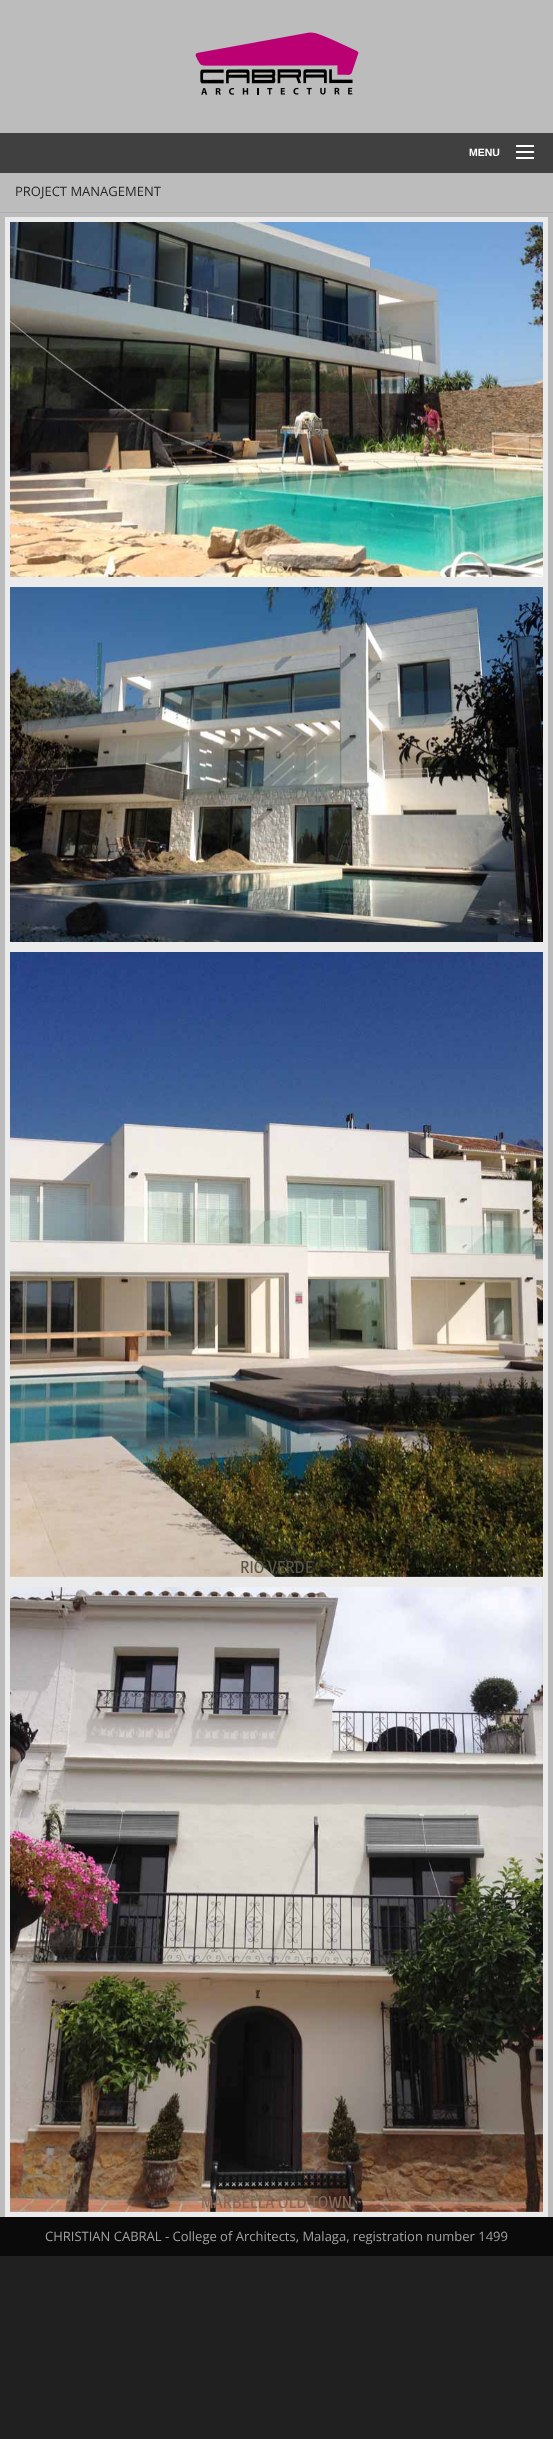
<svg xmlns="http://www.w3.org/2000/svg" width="553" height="2439">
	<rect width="100%" height="100%" fill="#202020" />
	<rect x="0" y="0" width="553" height="133" fill="#BCBCBC" />
	<image x="195" y="32" width="164" height="63" href="assets/img1.png" />
	<rect x="0" y="133" width="553" height="40" fill="#404040" />
	<rect x="516" y="157" width="18" height="2" fill="#FFFFFF" />
	<rect x="516" y="151" width="18" height="2" fill="#FFFFFF" />
	<rect x="516" y="145" width="18" height="2" fill="#FFFFFF" />
	<text x="469" y="156" font-family="Liberation Sans" font-size="10.5" font-weight="700" fill="#FFFFFF">MENU</text>
	<rect x="0" y="212" width="553" height="1" fill="#AFAFAF" />
	<rect x="0" y="173" width="553" height="39" fill="#BCBCBC" />
	<text x="15" y="196" font-family="Open Sans" font-size="13" fill="#262626">PROJECT MANAGEMENT</text>
	<rect x="0" y="213" width="553" height="2004" fill="#BCBCBC" />
	<rect x="5" y="217" width="543" height="2000" fill="#EBEBEB" />
	<image x="10" y="222" width="533" height="355" href="assets/img2.png" />
	<text x="259" y="573" font-family="Magra" font-size="17" fill="#CBB894">RZ84</text>
	<image x="10" y="587" width="533" height="355" href="assets/img3.png" />
	<image x="10" y="952" width="533" height="625" href="assets/img4.png" />
	<text x="240" y="1573" font-family="Magra" font-size="17" fill="#5A5647">RIO VERDE</text>
	<image x="10" y="1587" width="533" height="625" href="assets/img5.png" />
	<text x="201" y="2208" font-family="Magra" font-size="17" fill="#8A6754">MARBELLA OLD TOWN</text>
	<rect x="0" y="2217" width="553" height="39" fill="#0A0A0A" />
	<text x="45" y="2241" font-family="Open Sans" font-size="13" fill="#A1A1A1">CHRISTIAN CABRAL - College of Architects, Malaga, registration number 1499</text>
</svg>
